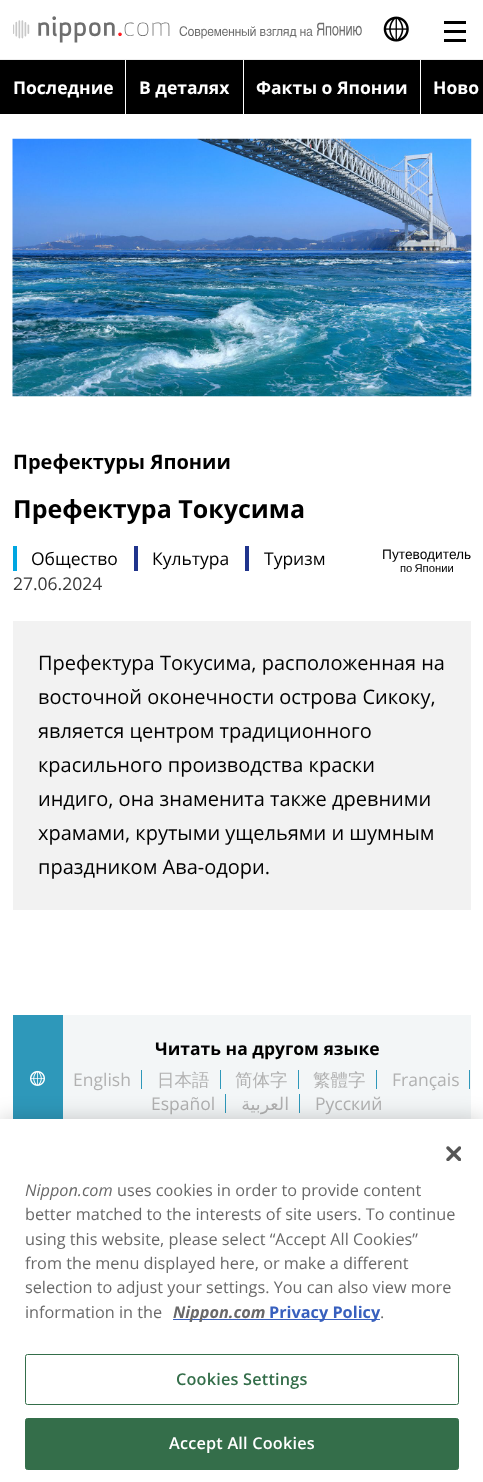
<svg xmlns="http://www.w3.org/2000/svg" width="483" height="1482">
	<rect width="100%" height="100%" fill="#FFFFFF" />
	<rect x="0" y="59" width="483" height="1" fill="#EEEEEE" />
	<image x="13" y="16" width="349" height="27" href="assets/img1.png" />
	<image x="383" y="16" width="26" height="26" href="assets/img2.png" />
	<rect x="444" y="30" width="22" height="3" fill="#000000" />
	<rect x="444" y="21" width="22" height="3" fill="#000000" />
	<rect x="444" y="39" width="22" height="3" fill="#000000" />
	<rect x="0" y="60" width="483" height="54" fill="#000000" />
	<rect x="125" y="60" width="1" height="54" fill="#FFFFFF" />
	<text x="13" y="94" font-family="Open Sans" font-size="17.5" font-weight="700" fill="#FFFFFF">Последние</text>
	<rect x="243" y="60" width="1" height="54" fill="#FFFFFF" />
	<text x="139" y="94" font-family="Open Sans" font-size="17.5" font-weight="700" fill="#FFFFFF">В деталях</text>
	<rect x="420" y="60" width="1" height="54" fill="#FFFFFF" />
	<g font-family="Open Sans" font-size="17.5" font-weight="700" fill="#FFFFFF">
		<text x="256" y="94">Факты о Японии</text>
		<text x="433" y="94">Ново</text>
	</g>
	<image x="12" y="138" width="460" height="259" href="assets/img3.png" />
	<text x="13" y="469" font-family="Open Sans" font-size="20" font-weight="700" fill="#000000">Префектуры Японии</text>
	<text x="13" y="518" font-family="Open Sans" font-size="25" font-weight="700" fill="#000000">Префектура Токусима</text>
	<rect x="13" y="546" width="4" height="25" fill="#00A6E1" />
	<text x="31" y="565" font-family="Open Sans" font-size="17.5" fill="#000000">Общество</text>
	<rect x="134" y="546" width="4" height="25" fill="#20348C" />
	<text x="152" y="565" font-family="Open Sans" font-size="17.5" fill="#000000">Культура</text>
	<rect x="245" y="546" width="4" height="25" fill="#20348C" />
	<text x="264" y="565" font-family="Open Sans" font-size="17.5" fill="#000000">Туризм</text>
	<text x="382" y="559" font-family="Liberation Sans" font-size="13.75" fill="#000000">Путеводитель</text>
	<text x="400" y="572" word-spacing="-1" font-family="Liberation Sans" font-size="11.25" fill="#000000">по Японии</text>
	<text x="13" y="590" font-family="Open Sans" font-size="17.5" fill="#383838">27.06.2024</text>
	<rect x="13" y="621" width="458" height="289" fill="#F2F2F2" />
	<g font-family="Open Sans" font-size="20" fill="#000000">
		<text x="38" y="670">Префектура Токусима, расположенная на</text>
		<text x="38" y="704">восточной оконечности острова Сикоку,</text>
		<text x="38" y="738">является центром традиционного</text>
		<text x="38" y="772">красильного производства краски</text>
		<text x="38" y="806">индиго, она знаменита также древними</text>
		<text x="38" y="840">храмами, крутыми ущельями и шумным</text>
		<text x="38" y="874">праздником Ава-одори.</text>
	</g>
	<rect x="63" y="1015" width="408" height="104" fill="#F3F6F7" />
	<rect x="13" y="1015" width="50" height="104" fill="#2E98BA" />
	<image x="30" y="1070" width="15" height="16" href="assets/img4.png" />
	<text x="155" y="1055" font-family="Open Sans" font-size="17.5" font-weight="700" fill="#000000">Читать на другом языке</text>
	<rect x="141" y="1070" width="1" height="19" fill="#2E98BA" />
	<text x="73" y="1086" font-family="Open Sans" font-size="17.5" fill="#B1B1B1">English</text>
	<rect x="220" y="1070" width="1" height="19" fill="#2E98BA" />
	<text x="157" y="1086" font-family="WenQuanYi Zen Hei" font-size="17.5" font-weight="500" fill="#B1B1B1">日本語</text>
	<rect x="298" y="1070" width="1" height="19" fill="#2E98BA" />
	<text x="235" y="1086" font-family="WenQuanYi Zen Hei" font-size="17.5" font-weight="500" fill="#B1B1B1">简体字</text>
	<rect x="376" y="1070" width="1" height="19" fill="#2E98BA" />
	<text x="313" y="1086" font-family="WenQuanYi Zen Hei" font-size="17.5" font-weight="500" fill="#B1B1B1">繁體字</text>
	<rect x="469" y="1070" width="1" height="19" fill="#2E98BA" />
	<text x="392" y="1086" font-family="Open Sans" font-size="17.5" fill="#B1B1B1">Français</text>
	<rect x="225" y="1094" width="1" height="19" fill="#2E98BA" />
	<text x="151" y="1110" font-family="Open Sans" font-size="17.5" fill="#B1B1B1">Español</text>
	<rect x="299" y="1094" width="1" height="19" fill="#2E98BA" />
	<text x="289" y="1110" font-family="DejaVu Sans" font-size="17.5" direction="rtl" fill="#B1B1B1">العربية</text>
	<text x="315" y="1110" font-family="Open Sans" font-size="17.5" fill="#B1B1B1">Русский</text>
	<rect x="0" y="1119" width="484" height="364" fill="#000000" fill-opacity="0.2" filter="blur(11px)" />
	<rect x="0" y="1119" width="483" height="363" fill="#FFFFFF" />
	<image x="446" y="1146" width="15" height="15" href="assets/img5.png" />
	<text x="25" y="1196" font-family="Open Sans" font-size="16.25" font-style="italic" fill="#696969">Nippon.com</text>
	<g font-family="Open Sans" font-size="16.25" fill="#696969">
		<text x="117" y="1196">uses cookies in order to provide content</text>
		<text x="25" y="1220">better matched to the interests of site users. To continue</text>
		<text x="25" y="1245">using this website, please select “Accept All Cookies”</text>
		<text x="25" y="1269">from the menu displayed here, or make a different</text>
		<text x="25" y="1293">selection to adjust your settings. You can also view more</text>
		<text x="25" y="1318">information in the</text>
	</g>
	<rect x="173" y="1319" width="207" height="1" fill="#3860BE" />
	<text x="173" y="1318" font-family="Open Sans" font-size="16.25" font-weight="700" font-style="italic" fill="#696969">Nippon.com</text>
	<text x="269" y="1318" font-family="Open Sans" font-size="16.25" font-weight="700" fill="#3860BE">Privacy Policy</text>
	<text x="380" y="1318" font-family="Open Sans" font-size="16.25" fill="#696969">.</text>
	<rect x="25.5" y="1354.5" width="433" height="50" rx="2" fill="none" stroke="#346E4A" />
	<text x="176" y="1385" font-family="Open Sans" font-size="16.25" font-weight="600" letter-spacing="0.2" fill="#346E4A">Cookies Settings</text>
	<rect x="25.5" y="1418.5" width="433" height="51" rx="2" fill="#346E4A" stroke="#346E4A" />
	<text x="169" y="1449" font-family="Open Sans" font-size="16.25" font-weight="600" letter-spacing="0.2" fill="#FFFFFF">Accept All Cookies</text>
</svg>
